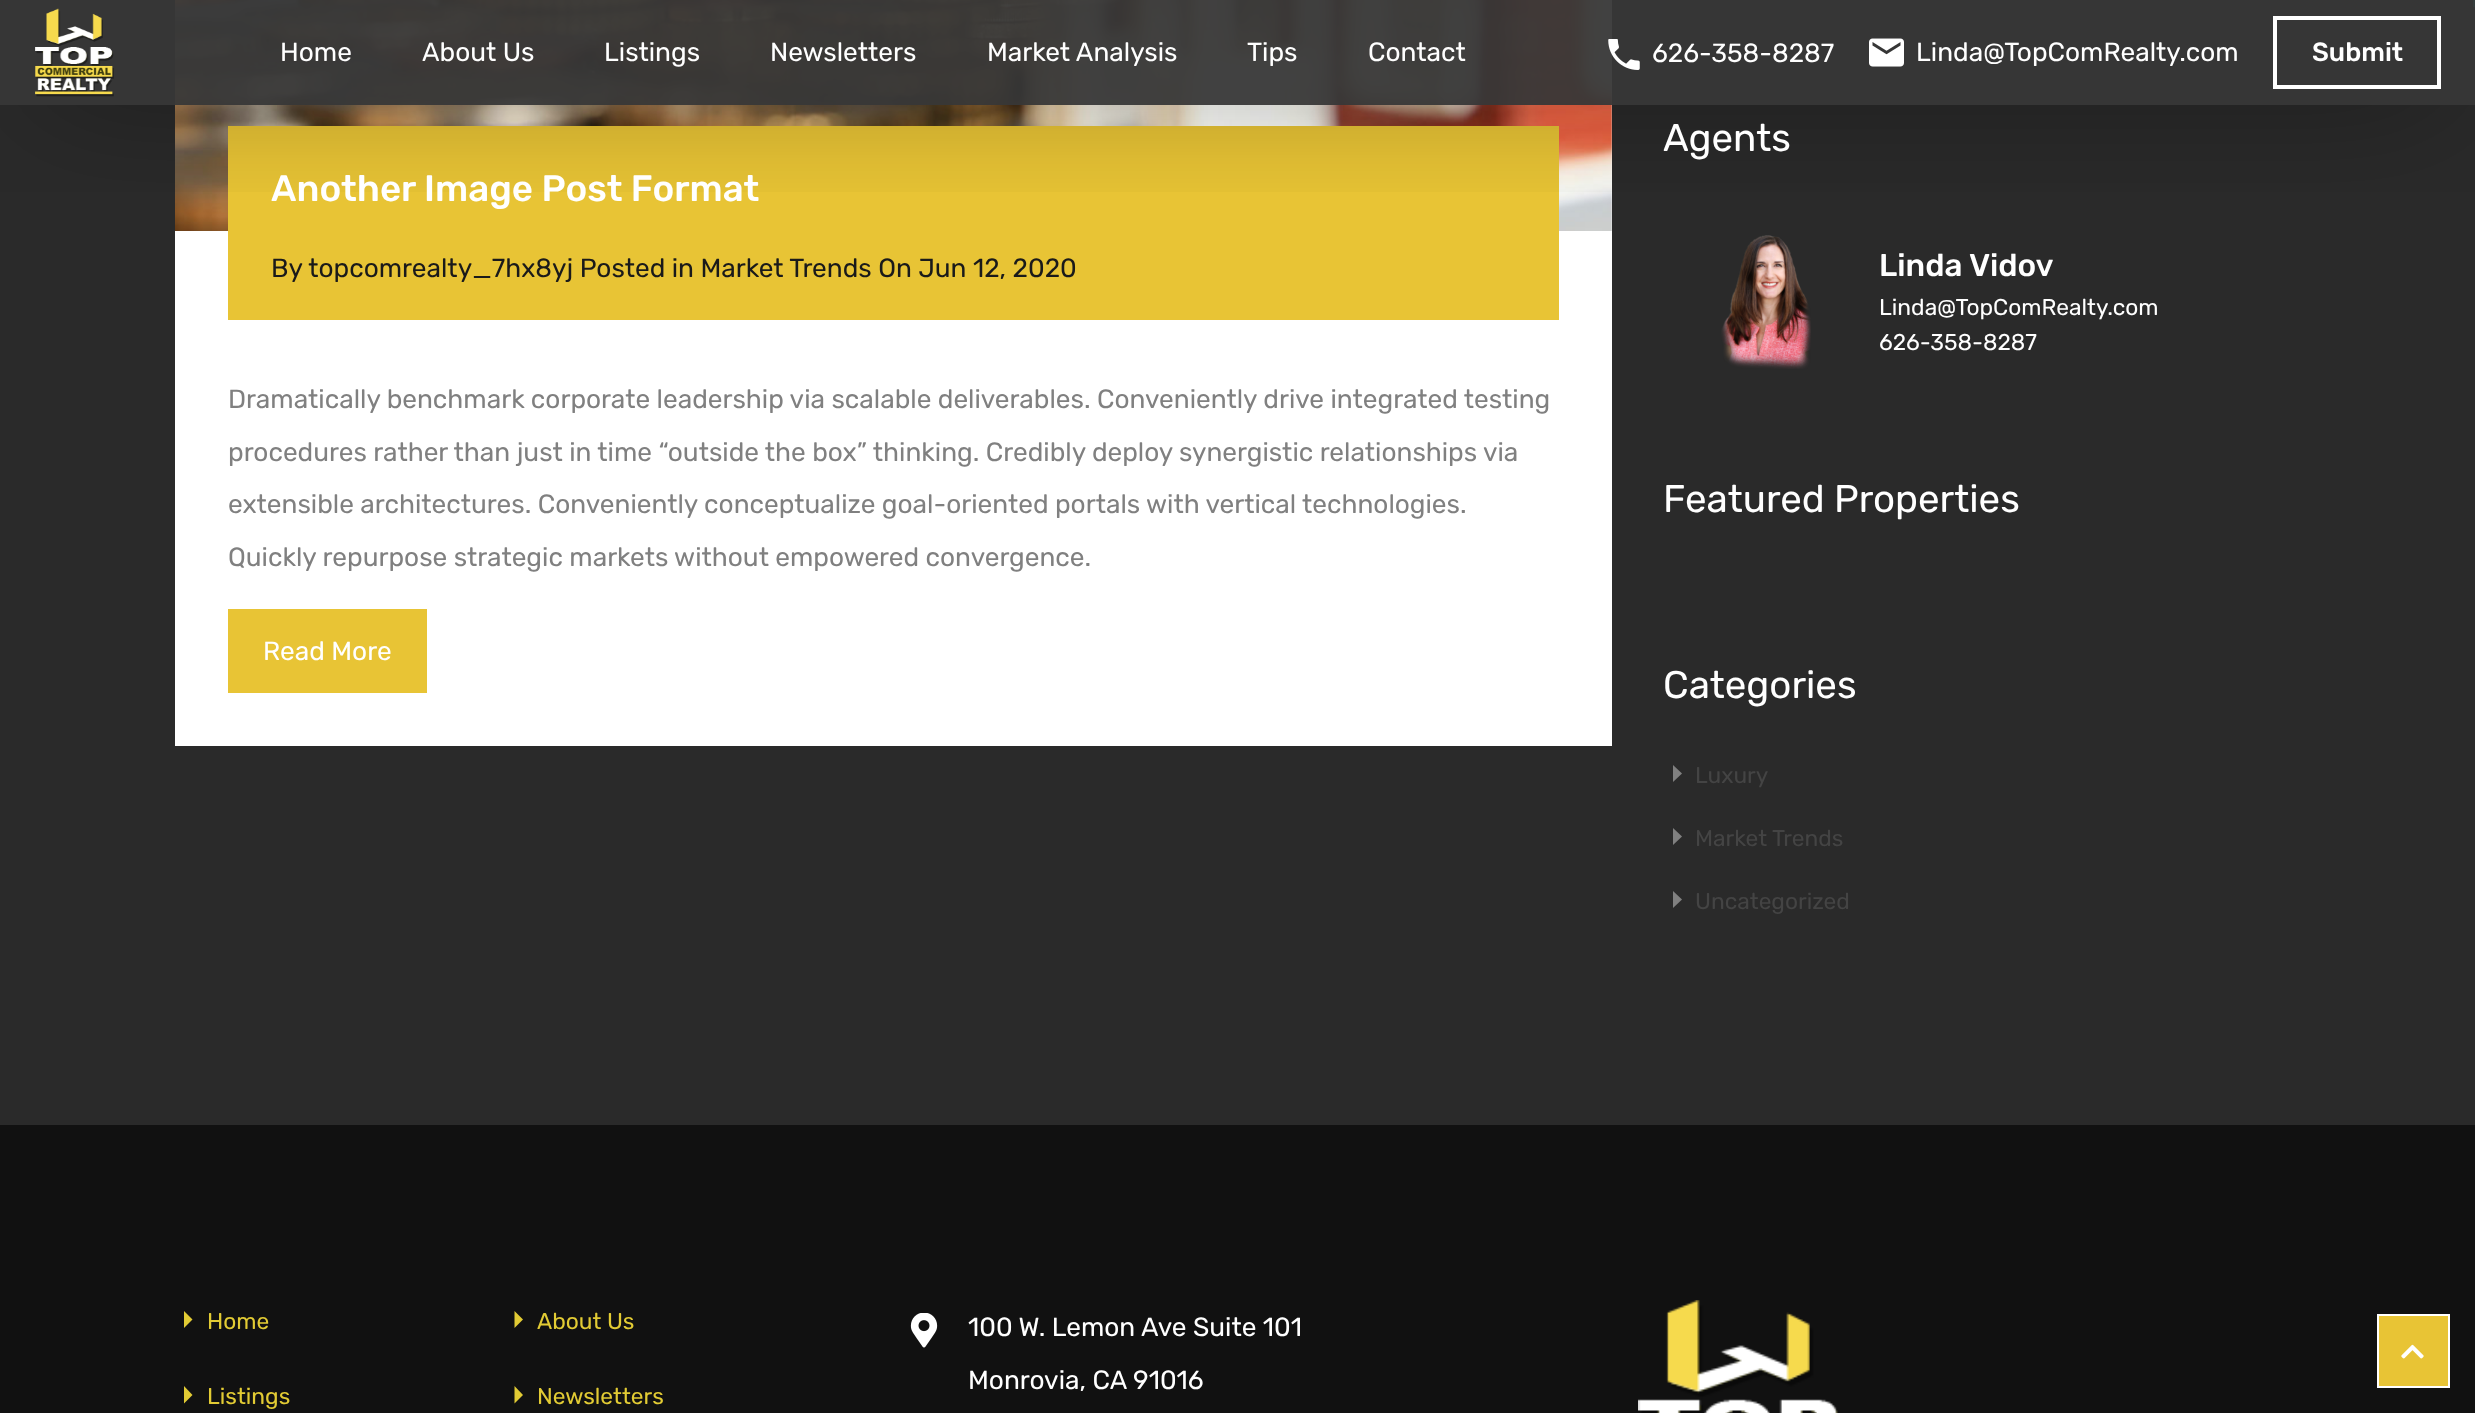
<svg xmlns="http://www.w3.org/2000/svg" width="2475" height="1413">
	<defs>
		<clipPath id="clip1"><rect x="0" y="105" width="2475" height="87" /></clipPath>
	</defs>
	<rect width="100%" height="100%" fill="#2A2A2A" />
	<path d="M2473 3.5H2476" fill="none" stroke="#1EA69A" stroke-width="7.4" />
	<rect x="175" y="0" width="1437" height="746" fill="#FFFFFF" />
	<image x="175" y="0" width="1437" height="231" href="assets/img4.png" />
	<rect x="228" y="126" width="1331" height="194" fill="#E8C435" />
	<image x="1721" y="235" width="90" height="134" href="assets/img5.png" />
	<g clip-path="url(#clip1)">
		<rect x="40" y="44" width="2407" height="35" fill="#000000" fill-opacity="0.75" filter="blur(63px)" />
	</g>
	<rect x="0" y="0" width="2475" height="105" fill="#373737" fill-opacity="0.95" />
	<image x="35" y="8" width="79" height="89" href="assets/img1.png" />
	<g font-family="Rubik" font-size="26.25" fill="#FFFFFF">
		<text x="280" y="61">Home</text>
		<text x="422" y="61">About Us</text>
		<text x="604" y="61">Listings</text>
		<text x="770" y="61">Newsletters</text>
		<text x="987" y="61">Market Analysis</text>
		<text x="1247" y="61">Tips</text>
		<text x="1368" y="61">Contact</text>
	</g>
	<image x="1608" y="39" width="32" height="31" href="assets/img2.png" />
	<text x="1652" y="62" font-family="Rubik" font-size="26.25" fill="#FFFFFF">626-358-8287</text>
	<image x="1869" y="38" width="35" height="29" href="assets/img3.png" />
	<text x="1916" y="61" font-family="Rubik" font-size="26.25" fill="#FFFFFF">Linda@TopComRealty.com</text>
	<rect x="2275" y="18" width="164" height="69" fill="none" stroke="#FFFFFF" stroke-width="4" />
	<text x="2312" y="61" font-family="Rubik" font-size="26.25" font-weight="500" fill="#FFFFFF">Submit</text>
	<text x="271" y="201" font-family="Rubik" font-size="36.75" font-weight="500" fill="#FFFFFF">Another Image Post Format</text>
	<text x="271" y="277" font-family="Rubik" font-size="26.25" fill="#1A1A1A">By topcomrealty_7hx8yj Posted in Market Trends On Jun 12, 2020</text>
	<g font-family="Rubik" font-size="26.25" fill="#808080">
		<text x="228" y="408">Dramatically benchmark corporate leadership via scalable deliverables. Conveniently drive integrated testing</text>
		<text x="228" y="461">procedures rather than just in time “outside the box” thinking. Credibly deploy synergistic relationships via</text>
		<text x="228" y="513">extensible architectures. Conveniently conceptualize goal-oriented portals with vertical technologies.</text>
		<text x="228" y="566">Quickly repurpose strategic markets without empowered convergence.</text>
	</g>
	<rect x="228" y="609" width="199" height="84" fill="#E8C435" />
	<text x="263" y="660" font-family="Rubik" font-size="26.25" fill="#FFFFFF">Read More</text>
	<text x="1663" y="151" font-family="Rubik" font-size="38.5" fill="#FFFFFF">Agents</text>
	<text x="1879" y="276" font-family="Rubik" font-size="31.5" font-weight="500" fill="#FFFFFF">Linda Vidov</text>
	<g font-family="Rubik" font-size="22.75" fill="#FFFFFF">
		<text x="1879" y="315">Linda@TopComRealty.com</text>
		<text x="1879" y="350">626-358-8287</text>
	</g>
	<g font-family="Rubik" font-size="38.5" fill="#FFFFFF">
		<text x="1663" y="512">Featured Properties</text>
		<text x="1663" y="698">Categories</text>
	</g>
	<path d="M1673 782V765L1682 773.5Z" fill="#808080" />
	<text x="1695" y="783" font-family="Rubik" font-size="22.75" fill="#444444">Luxury</text>
	<path d="M1673 845V828L1682 836.5Z" fill="#808080" />
	<text x="1695" y="846" font-family="Rubik" font-size="22.75" fill="#444444">Market Trends</text>
	<path d="M1673 908V891L1682 899.5Z" fill="#808080" />
	<text x="1695" y="909" font-family="Rubik" font-size="22.75" fill="#444444">Uncategorized</text>
	<rect x="0" y="1125" width="2475" height="288" fill="#111111" />
	<path d="M184 1328V1311L192.5 1319.5Z" fill="#E2CB34" />
	<text x="207" y="1329" font-family="Rubik" font-size="22.75" fill="#E2CB34">Home</text>
	<path d="M514.5 1328V1311L523 1319.5Z" fill="#E2CB34" />
	<text x="537" y="1329" font-family="Rubik" font-size="22.75" fill="#E2CB34">About Us</text>
	<path d="M184 1403.5V1386L192.5 1395Z" fill="#E2CB34" />
	<text x="207" y="1404" font-family="Rubik" font-size="22.75" fill="#E2CB34">Listings</text>
	<path d="M514.5 1403.5V1386L523 1395Z" fill="#E2CB34" />
	<text x="537" y="1404" font-family="Rubik" font-size="22.75" fill="#E2CB34">Newsletters</text>
	<image x="910" y="1313" width="28" height="35" href="assets/img6.png" />
	<g font-family="Rubik" font-size="26.25" fill="#FFFFFF">
		<text x="968" y="1336">100 W. Lemon Ave Suite 101</text>
		<text x="968" y="1389">Monrovia, CA 91016</text>
	</g>
	<image x="1638" y="1300" width="200" height="113" href="assets/img7.png" />
	<rect x="2378" y="1315" width="71" height="72" fill="#E8C435" stroke="#FFFFFF" stroke-width="2" />
	<image x="2401" y="1344" width="23" height="15" href="assets/img8.png" />
</svg>
